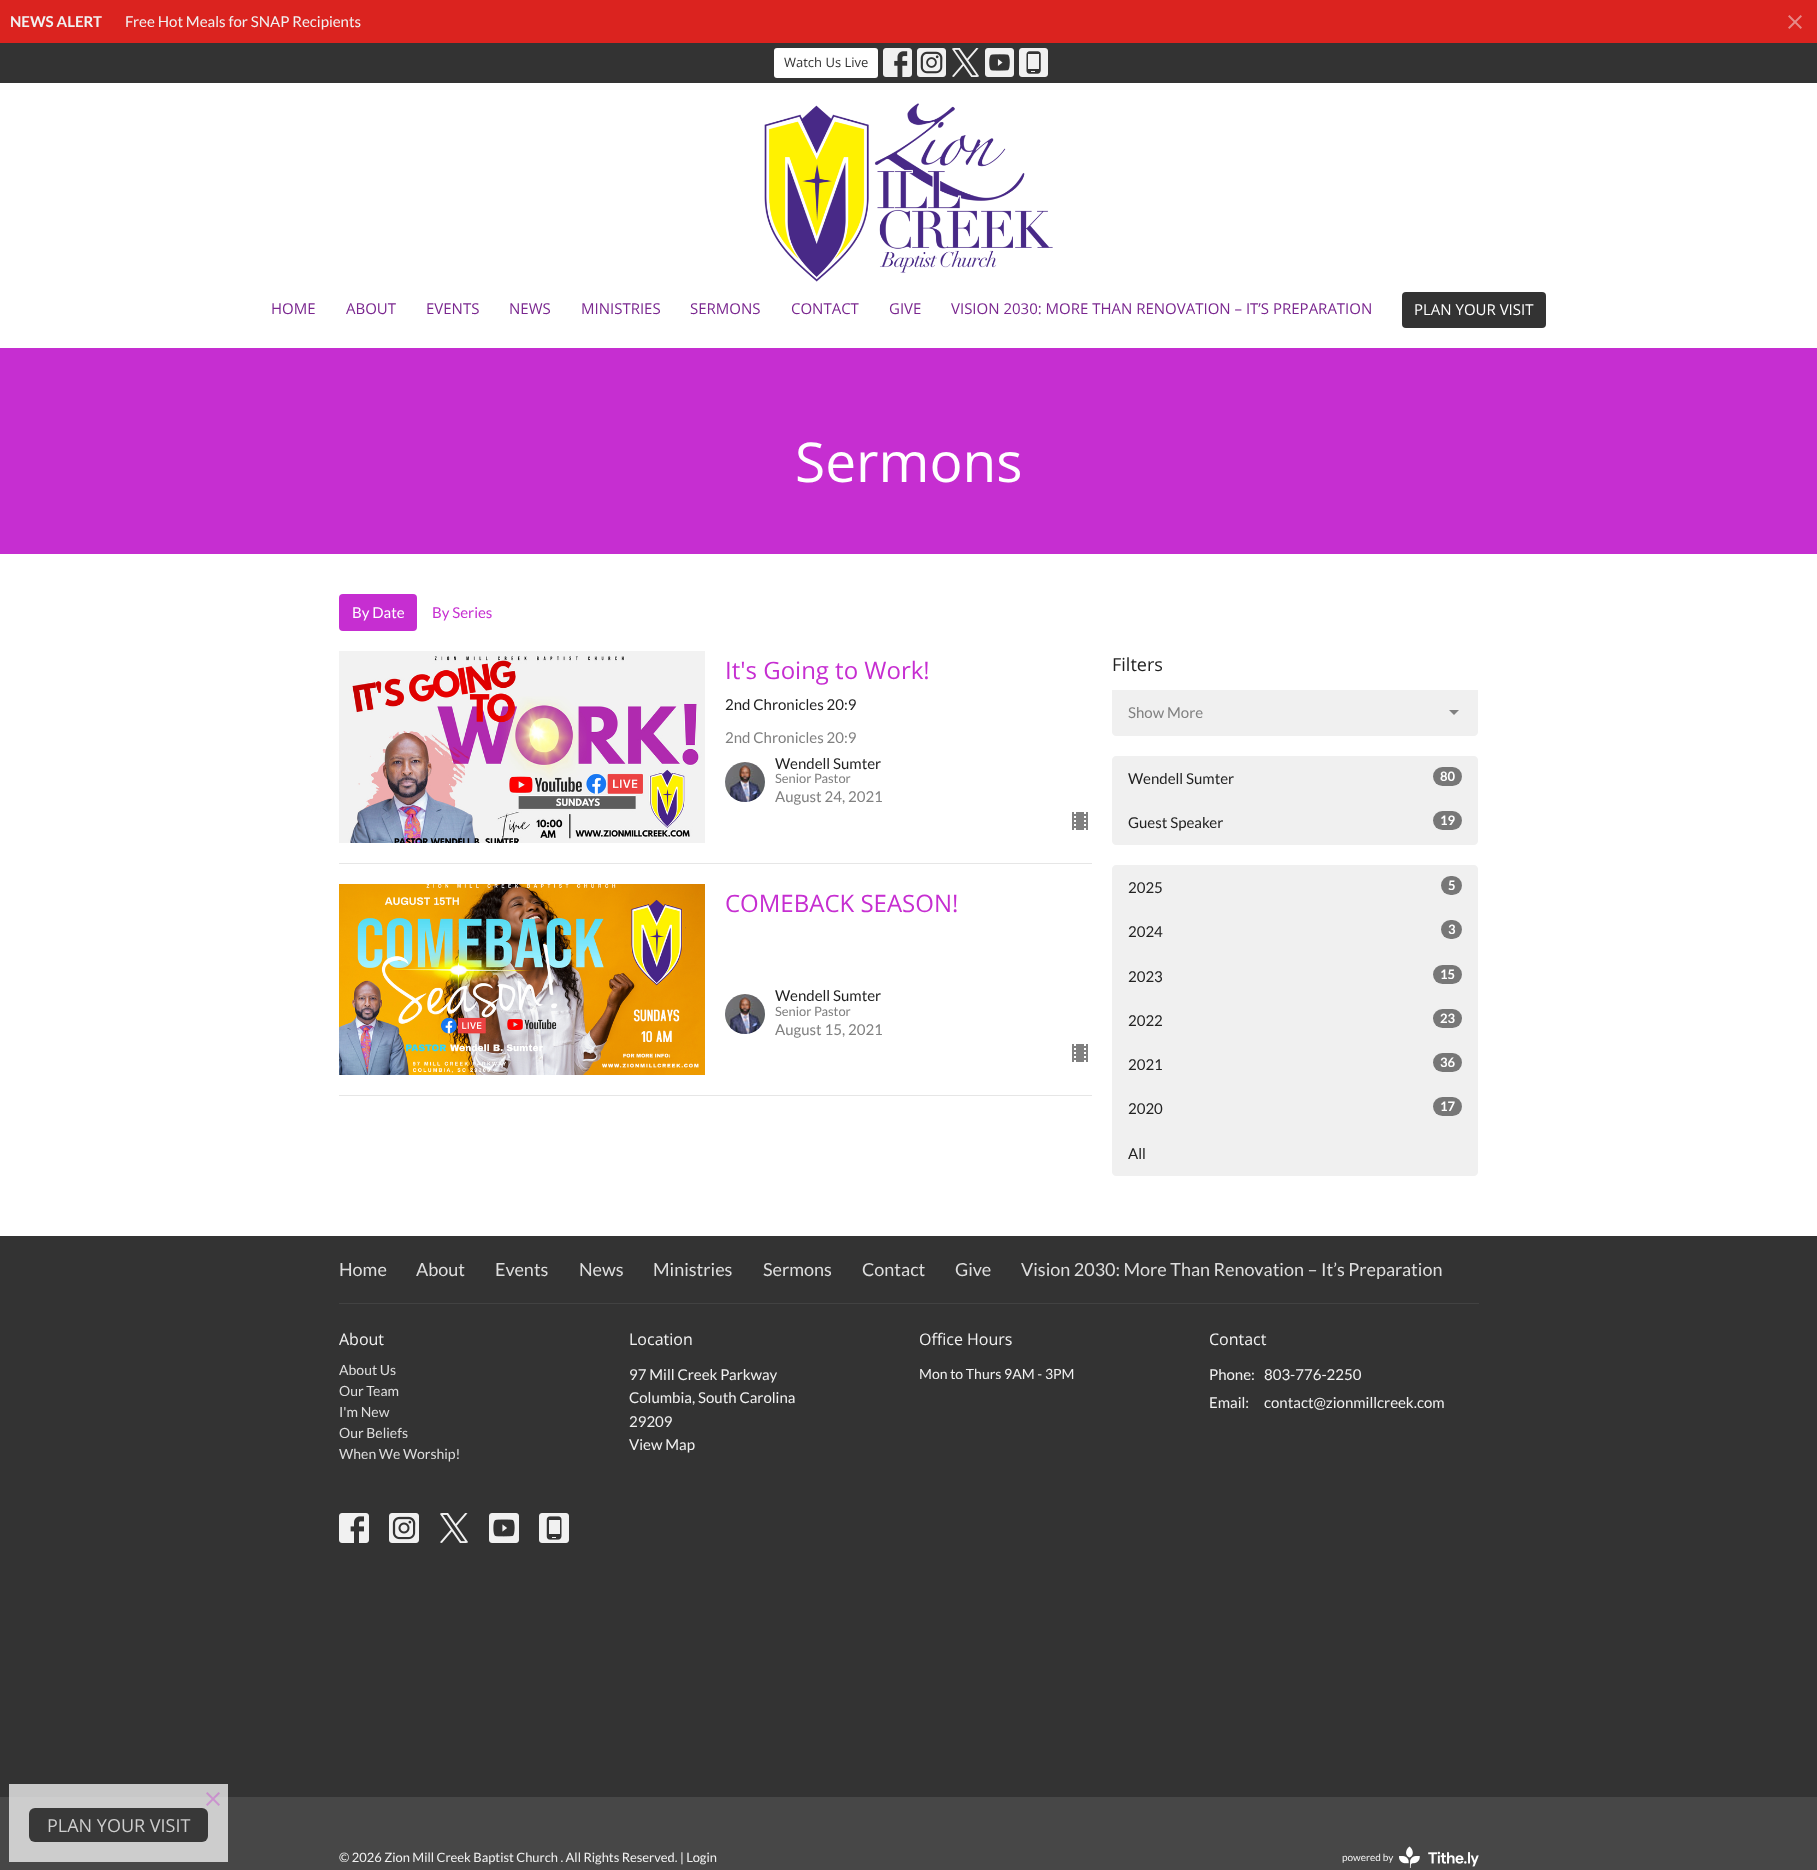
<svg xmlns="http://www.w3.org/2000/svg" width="1817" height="1870">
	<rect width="100%" height="100%" fill="#FFFFFF" />
	<rect x="0" y="0" width="1817" height="43" fill="#DB231F" />
	<text x="10" y="27" font-family="Lato" font-size="15" font-weight="700" fill="#F1F1F1">NEWS ALERT</text>
	<text x="125" y="27" font-family="Lato" font-size="15" fill="#F1F1F1">Free Hot Meals for SNAP Recipients</text>
	<image x="1788" y="15" width="14" height="14" href="assets/img1.png" />
	<rect x="0" y="43" width="1817" height="40" fill="#333333" />
	<rect x="774" y="48" width="104" height="30" rx="3" fill="#FFFFFF" />
	<text x="784" y="67" font-family="Open Sans" font-size="13" fill="#333333">Watch Us Live</text>
	<image x="883" y="48" width="29" height="29" href="assets/img2.png" />
	<image x="917" y="48" width="29" height="29" href="assets/img3.png" />
	<image x="952" y="48" width="27" height="29" href="assets/img4.png" />
	<image x="985" y="48" width="29" height="29" href="assets/img5.png" />
	<image x="1019" y="48" width="29" height="29" href="assets/img6.png" />
	<image x="764" y="103" width="289" height="179" href="assets/img7.png" />
	<g font-family="Open Sans" font-size="15" fill="#7A268F">
		<text x="271" y="314">HOME</text>
		<text x="346" y="314">ABOUT</text>
		<text x="426" y="314">EVENTS</text>
		<text x="509" y="314">NEWS</text>
		<text x="581" y="314">MINISTRIES</text>
		<text x="690" y="314">SERMONS</text>
		<text x="791" y="314">CONTACT</text>
		<text x="889" y="314">GIVE</text>
		<text x="951" y="314">VISION 2030: MORE THAN RENOVATION – IT’S PREPARATION</text>
	</g>
	<rect x="1402" y="292" width="144" height="36" rx="4" fill="#333333" />
	<text x="1414" y="315" font-family="Open Sans" font-size="15" fill="#FFFFFF">PLAN YOUR VISIT</text>
	<rect x="0" y="348" width="1817" height="206" fill="#C62ED1" />
	<text x="795" y="482" font-family="Open Sans" font-size="55" fill="#FFFFFF">Sermons</text>
	<rect x="339" y="594" width="78" height="37" rx="4" fill="#C62ED1" />
	<text x="352" y="618" font-family="Lato" font-size="15" fill="#FFFFFF">By Date</text>
	<text x="432" y="618" font-family="Lato" font-size="15" fill="#C62ED1">By Series</text>
	<rect x="339" y="863" width="753" height="1" fill="#E6E6E6" />
	<image x="339" y="651" width="366" height="192" href="assets/img8.png" />
	<text x="725" y="679" font-family="Open Sans" font-size="24" fill="#C62ED1">It's Going to Work!</text>
	<text x="725" y="710" font-family="Lato" font-size="15" fill="#222222">2nd Chronicles 20:9</text>
	<text x="725" y="743" font-family="Lato" font-size="15" fill="#808080">2nd Chronicles 20:9</text>
	<image x="725" y="762" width="40" height="40" href="assets/img9.png" />
	<text x="775" y="769" font-family="Lato" font-size="15" fill="#222222">Wendell Sumter</text>
	<text x="775" y="783" font-family="Lato" font-size="12.9" fill="#808080">Senior Pastor</text>
	<text x="775" y="802" font-family="Lato" font-size="15" fill="#808080">August 24, 2021</text>
	<image x="1072" y="812" width="16" height="18" href="assets/img10.png" />
	<rect x="339" y="1095" width="753" height="1" fill="#E6E6E6" />
	<image x="339" y="884" width="366" height="191" href="assets/img11.png" />
	<text x="725" y="912" font-family="Open Sans" font-size="24" fill="#C62ED1">COMEBACK SEASON!</text>
	<image x="725" y="994" width="40" height="40" href="assets/img12.png" />
	<text x="775" y="1001" font-family="Lato" font-size="15" fill="#222222">Wendell Sumter</text>
	<text x="775" y="1016" font-family="Lato" font-size="12.9" fill="#808080">Senior Pastor</text>
	<text x="775" y="1035" font-family="Lato" font-size="15" fill="#808080">August 15, 2021</text>
	<image x="1072" y="1044" width="16" height="18" href="assets/img10.png" />
	<text x="1112" y="671" font-family="Open Sans" font-size="18" fill="#222222">Filters</text>
	<path d="M1112 690H1478V732C1478 734 1476 736 1474 736H1116C1114 736 1112 734 1112 732Z" fill="#F0F0F0" />
	<text x="1128" y="718" font-family="Lato" font-size="15" fill="#808080">Show More</text>
	<path d="M1449 710L1454 715L1459 710Z" fill="#808080" />
	<path d="M1116 756H1474C1476 756 1478 758 1478 760V801H1112V760C1112 758 1114 756 1116 756Z" fill="#F0F0F0" />
	<text x="1128" y="784" font-family="Lato" font-size="15" fill="#222222">Wendell Sumter</text>
	<rect x="1433" y="767" width="29" height="19" rx="9.5" fill="#777777" />
	<text x="1440" y="781" font-family="Lato" font-size="13" font-weight="700" fill="#FFFFFF">80</text>
	<path d="M1112 800H1478V841C1478 843 1476 845 1474 845H1116C1114 845 1112 843 1112 841Z" fill="#F0F0F0" />
	<text x="1128" y="828" font-family="Lato" font-size="15" fill="#222222">Guest Speaker</text>
	<rect x="1433" y="811" width="29" height="19" rx="9.5" fill="#777777" />
	<text x="1440" y="825" font-family="Lato" font-size="13" font-weight="700" fill="#FFFFFF">19</text>
	<path d="M1116 865H1474C1476 865 1478 867 1478 869V910H1112V869C1112 867 1114 865 1116 865Z" fill="#F0F0F0" />
	<text x="1128" y="893" font-family="Lato" font-size="15" fill="#222222">2025</text>
	<rect x="1441" y="876" width="21" height="19" rx="9.5" fill="#777777" />
	<text x="1448" y="890" font-family="Lato" font-size="13" font-weight="700" fill="#FFFFFF">5</text>
	<rect x="1112" y="910" width="366" height="221" fill="#F0F0F0" />
	<text x="1128" y="937" font-family="Lato" font-size="15" fill="#222222">2024</text>
	<rect x="1441" y="920" width="21" height="19" rx="9.5" fill="#777777" />
	<text x="1448" y="934" font-family="Lato" font-size="13" font-weight="700" fill="#FFFFFF">3</text>
	<text x="1128" y="982" font-family="Lato" font-size="15" fill="#222222">2023</text>
	<rect x="1433" y="965" width="29" height="19" rx="9.5" fill="#777777" />
	<text x="1440" y="979" font-family="Lato" font-size="13" font-weight="700" fill="#FFFFFF">15</text>
	<text x="1128" y="1026" font-family="Lato" font-size="15" fill="#222222">2022</text>
	<rect x="1433" y="1009" width="29" height="19" rx="9.5" fill="#777777" />
	<text x="1440" y="1023" font-family="Lato" font-size="13" font-weight="700" fill="#FFFFFF">23</text>
	<text x="1128" y="1070" font-family="Lato" font-size="15" fill="#222222">2021</text>
	<rect x="1433" y="1053" width="29" height="19" rx="9.5" fill="#777777" />
	<text x="1440" y="1067" font-family="Lato" font-size="13" font-weight="700" fill="#FFFFFF">36</text>
	<text x="1128" y="1114" font-family="Lato" font-size="15" fill="#222222">2020</text>
	<rect x="1433" y="1097" width="29" height="19" rx="9.5" fill="#777777" />
	<text x="1440" y="1111" font-family="Lato" font-size="13" font-weight="700" fill="#FFFFFF">17</text>
	<path d="M1112 1131H1478V1172C1478 1174 1476 1176 1474 1176H1116C1114 1176 1112 1174 1112 1172Z" fill="#F0F0F0" />
	<text x="1128" y="1159" font-family="Lato" font-size="15" fill="#222222">All</text>
	<rect x="0" y="1236" width="1817" height="561" fill="#333333" />
	<rect x="9" y="1784" width="219" height="13" fill="#C8C8C8" />
	<rect x="0" y="1797" width="1817" height="73" fill="#474747" />
	<rect x="9" y="1797" width="219" height="65" fill="#CDCDCD" />
	<image x="206" y="1792" width="14" height="14" href="assets/img13.png" />
	<rect x="29" y="1808" width="179" height="34" rx="6" fill="#383838" />
	<text x="47" y="1832" font-family="Open Sans" font-size="18" fill="#CDCDCD">PLAN YOUR VISIT</text>
	<g font-family="Lato" font-size="18" fill="#DEDEDE">
		<text x="339" y="1276">Home</text>
		<text x="416" y="1276">About</text>
		<text x="495" y="1276">Events</text>
		<text x="579" y="1276">News</text>
		<text x="653" y="1276">Ministries</text>
		<text x="763" y="1276">Sermons</text>
		<text x="862" y="1276">Contact</text>
		<text x="955" y="1276">Give</text>
		<text x="1021" y="1276">Vision 2030: More Than Renovation – It’s Preparation</text>
	</g>
	<rect x="339" y="1303" width="1140" height="1" fill="#424242" />
	<text x="339" y="1345" font-family="Open Sans" font-size="16" fill="#F1F1F1">About</text>
	<g font-family="Lato" font-size="14" fill="#DEDEDE">
		<text x="339" y="1375">About Us</text>
		<text x="339" y="1396">Our Team</text>
		<text x="339" y="1417">I'm New</text>
		<text x="339" y="1438">Our Beliefs</text>
		<text x="339" y="1459">When We Worship!</text>
	</g>
	<text x="629" y="1345" font-family="Open Sans" font-size="16" fill="#F1F1F1">Location</text>
	<g font-family="Lato" font-size="15" fill="#F1F1F1">
		<text x="629" y="1380">97 Mill Creek Parkway</text>
		<text x="629" y="1403">Columbia, South Carolina</text>
		<text x="629" y="1427">29209</text>
		<text x="629" y="1450">View Map</text>
	</g>
	<text x="919" y="1345" font-family="Open Sans" font-size="16" fill="#F1F1F1">Office Hours</text>
	<text x="919" y="1379" font-family="Lato" font-size="14" fill="#F1F1F1">Mon to Thurs 9AM - 3PM</text>
	<text x="1209" y="1345" font-family="Open Sans" font-size="16" fill="#F1F1F1">Contact</text>
	<g font-family="Lato" font-size="15" fill="#F1F1F1">
		<text x="1209" y="1380">Phone:</text>
		<text x="1264" y="1380">803-776-2250</text>
		<text x="1209" y="1408">Email:</text>
		<text x="1264" y="1408">contact@zionmillcreek.com</text>
	</g>
	<image x="339" y="1513" width="30" height="30" href="assets/img14.png" />
	<image x="389" y="1513" width="30" height="30" href="assets/img15.png" />
	<image x="440" y="1513" width="28" height="30" href="assets/img16.png" />
	<image x="489" y="1513" width="30" height="30" href="assets/img17.png" />
	<image x="539" y="1513" width="30" height="30" href="assets/img18.png" />
	<text x="339" y="1862" font-family="Lato" font-size="12.9" fill="#F1F1F1">© 2026 Zion Mill Creek Baptist Church . All Rights Reserved. | Login</text>
	<text x="1342" y="1861" font-family="Lato" font-size="10" fill="#F1F1F1">powered by</text>
	<image x="1399" y="1846" width="80" height="22" href="assets/img19.png" />
</svg>
